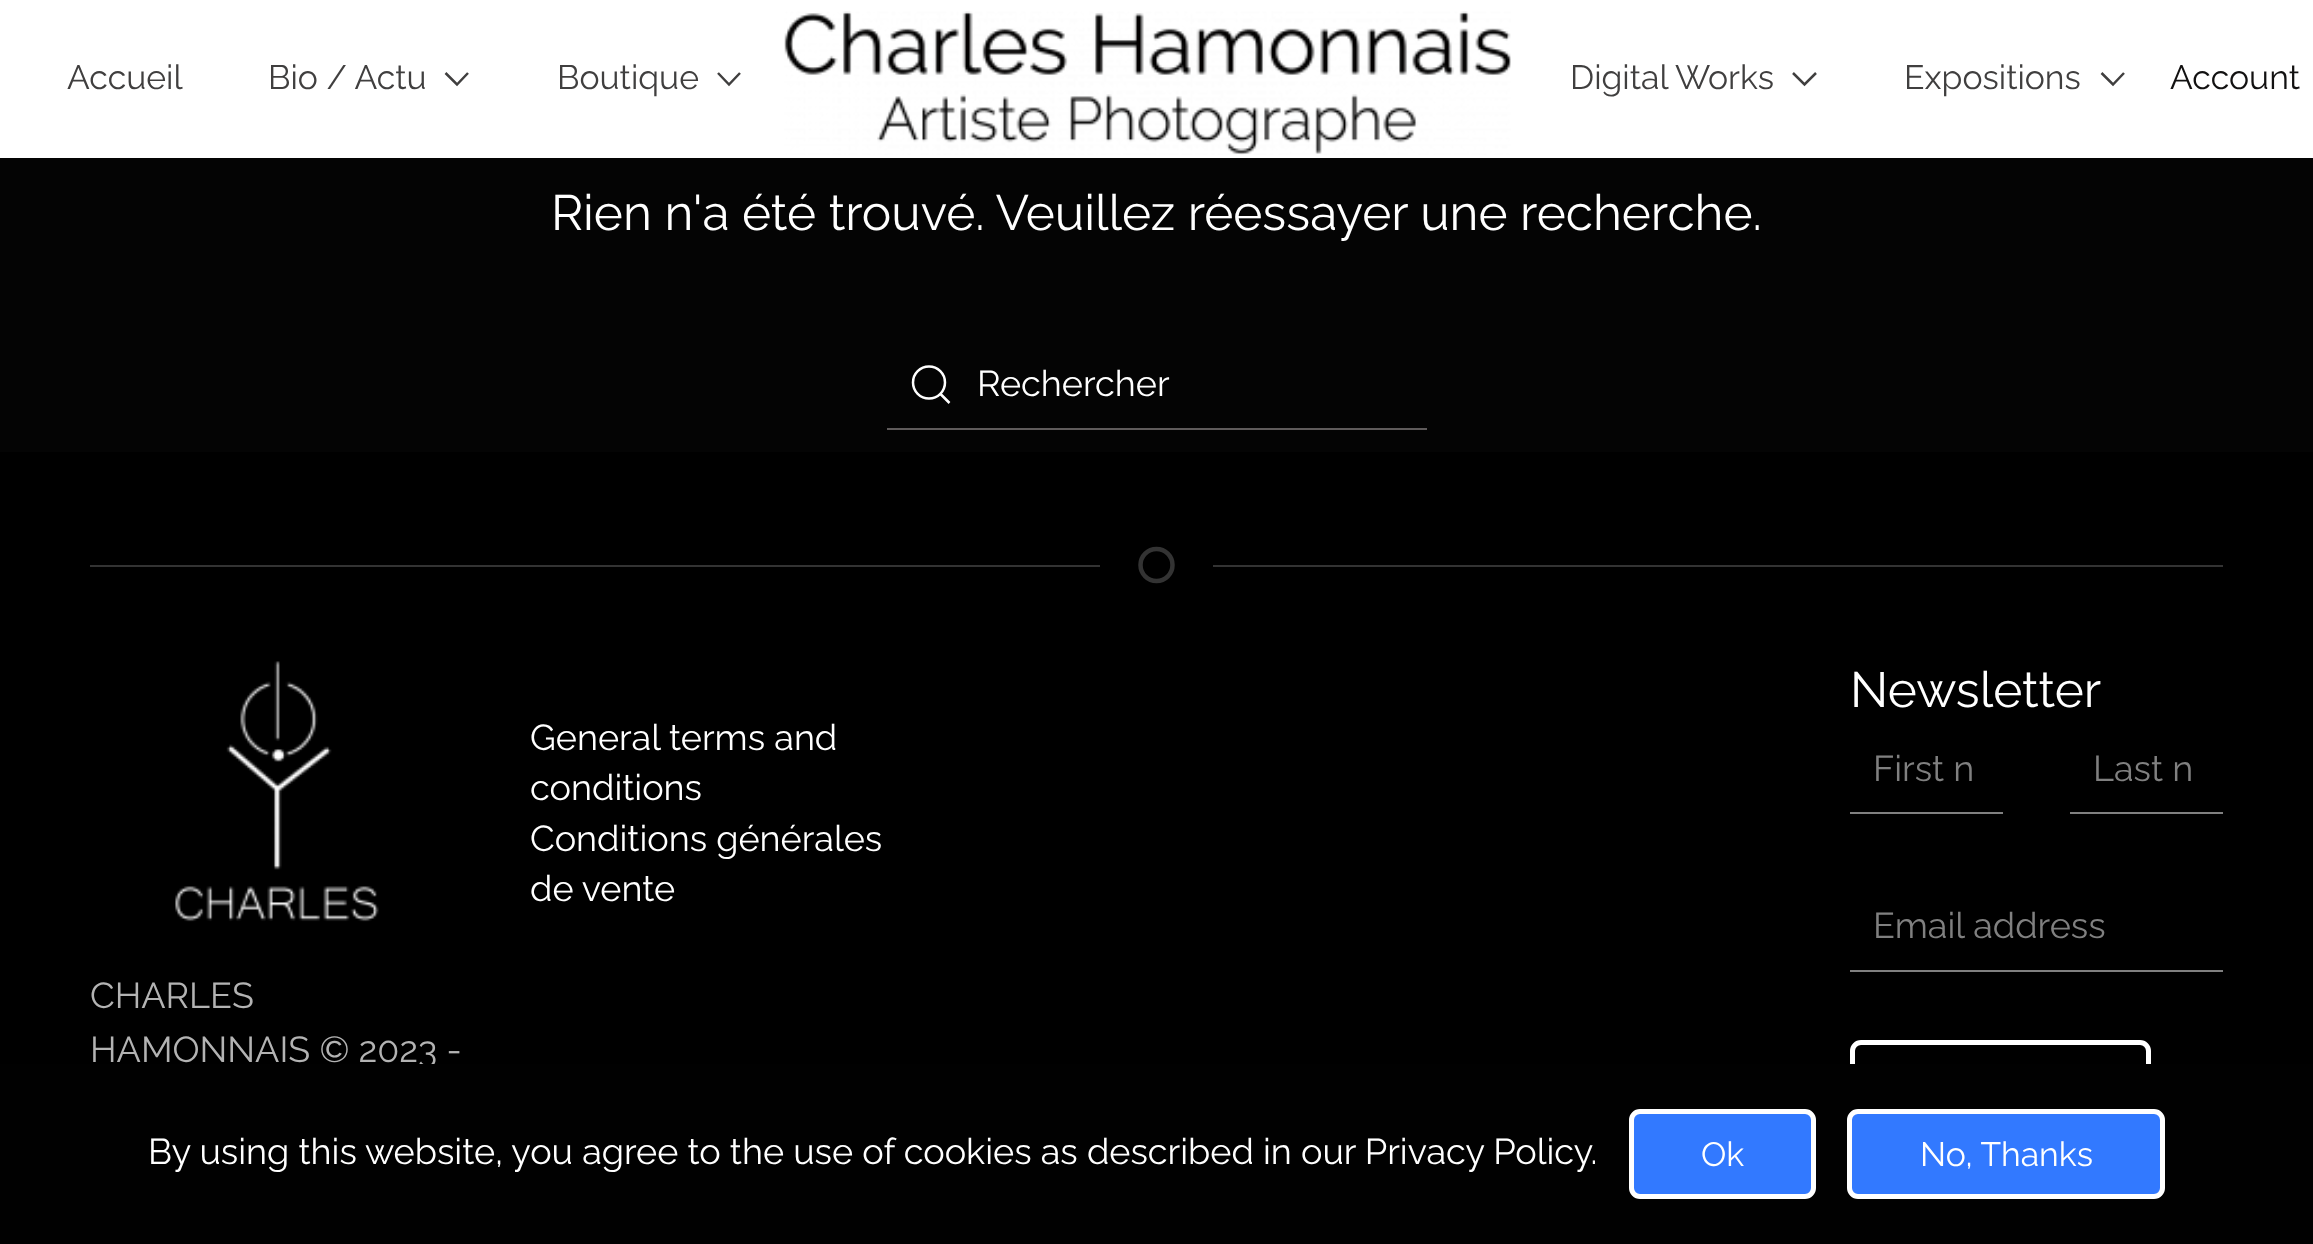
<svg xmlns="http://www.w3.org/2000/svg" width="2313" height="1244">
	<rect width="100%" height="100%" fill="#040404" />
	<rect x="0" y="0" width="2313" height="158" fill="#FFFFFF" />
	<g font-family="Raleway" font-size="33.75" font-weight="100" fill="#403F3F">
		<text x="67" y="89">Accueil</text>
		<text x="268" y="89">Bio / Actu</text>
	</g>
	<path d="M445.5 73L457 84.5L468 73" fill="none" stroke="#403F3F" stroke-width="2.5" />
	<text x="557" y="89" font-family="Raleway" font-size="33.75" font-weight="100" fill="#403F3F">Boutique</text>
	<path d="M718 73L729 84.5L740 73" fill="none" stroke="#403F3F" stroke-width="2.5" />
	<image x="784" y="11" width="727" height="144" href="assets/img1.png" />
	<text x="1570" y="89" font-family="Raleway" font-size="33.75" font-weight="100" fill="#403F3F">Digital Works</text>
	<path d="M1793 73L1804.5 84.5L1816 73" fill="none" stroke="#403F3F" stroke-width="2.5" />
	<text x="1904" y="89" font-family="Raleway" font-size="33.75" font-weight="100" fill="#403F3F">Expositions</text>
	<path d="M2101.5 73L2113 84.5L2124 73" fill="none" stroke="#403F3F" stroke-width="2.5" />
	<text x="2170" y="89" font-family="Raleway" font-size="33.75" font-weight="100" fill="#121111">Account</text>
	<text x="551" y="230" font-family="Raleway" font-size="49.5" font-weight="100" fill="#FFFFFF">Rien n'a été trouvé. Veuillez réessayer une recherche.</text>
	<circle cx="929" cy="382.5" r="16" fill="none" stroke="#FFFFFF" stroke-width="2.5" />
	<path d="M940.5 394L949.5 403Z" fill="none" stroke="#FFFFFF" stroke-width="2.5" />
	<rect x="887" y="428" width="540" height="2" fill="#5F5B5B" />
	<text x="977" y="396" font-family="Raleway" font-size="36" font-weight="100" fill="#FFFFFF">Rechercher</text>
	<rect x="0" y="452" width="2313" height="612" fill="#000000" />
	<circle cx="1156.5" cy="565" r="16" fill="none" stroke="#333333" stroke-width="4.5" />
	<rect x="90" y="565" width="1010" height="2" fill="#333333" />
	<rect x="1213" y="565" width="1010" height="2" fill="#333333" />
	<g font-family="Raleway" font-size="36" font-weight="100" fill="#FFFFFF">
		<text x="530" y="750">General terms and</text>
		<text x="530" y="800">conditions</text>
		<text x="530" y="851">Conditions générales</text>
		<text x="530" y="901">de vente</text>
	</g>
	<text x="1850" y="707" font-family="Raleway" font-size="49.5" font-weight="100" fill="#FFFFFF">Newsletter</text>
	<rect x="1850" y="812" width="153" height="2" fill="#808080" />
	<text x="1873" y="781" font-family="Raleway" font-size="36" font-weight="100" fill="#808080">First n</text>
	<rect x="2070" y="812" width="153" height="2" fill="#808080" />
	<text x="2093" y="781" font-family="Raleway" font-size="36" font-weight="100" fill="#808080">Last n</text>
	<rect x="1850" y="970" width="373" height="2" fill="#808080" />
	<text x="1873" y="938" font-family="Raleway" font-size="36" font-weight="100" fill="#808080">Email address</text>
	<rect x="1852.5" y="1042.5" width="296" height="85" rx="8.5" fill="none" stroke="#FFFFFF" stroke-width="5" />
	<image x="175" y="661" width="204" height="261" href="assets/img2.png" />
	<g font-family="Raleway" font-size="36" font-weight="100" fill="#B3B3B3">
		<text x="90" y="1008">CHARLES</text>
		<text x="90" y="1062">HAMONNAIS © 2023 -</text>
	</g>
	<rect x="0" y="1064" width="2313" height="180" fill="#010101" />
	<text x="148" y="1164" font-family="Raleway" font-size="36" font-weight="100" fill="#FFFFFF">By using this website, you agree to the use of cookies as described in our Privacy Policy.</text>
	<rect x="1631.5" y="1111.5" width="182" height="85" rx="8.5" fill="#3279FF" stroke="#FFFFFF" stroke-width="5" />
	<text x="1701" y="1166" font-family="Raleway" font-size="33.75" font-weight="100" fill="#FFFFFF">Ok</text>
	<rect x="1849.5" y="1111.5" width="313" height="85" rx="8.5" fill="#3279FF" stroke="#FFFFFF" stroke-width="5" />
	<text x="1920" y="1166" font-family="Raleway" font-size="33.75" font-weight="100" fill="#FFFFFF">No, Thanks</text>
</svg>
